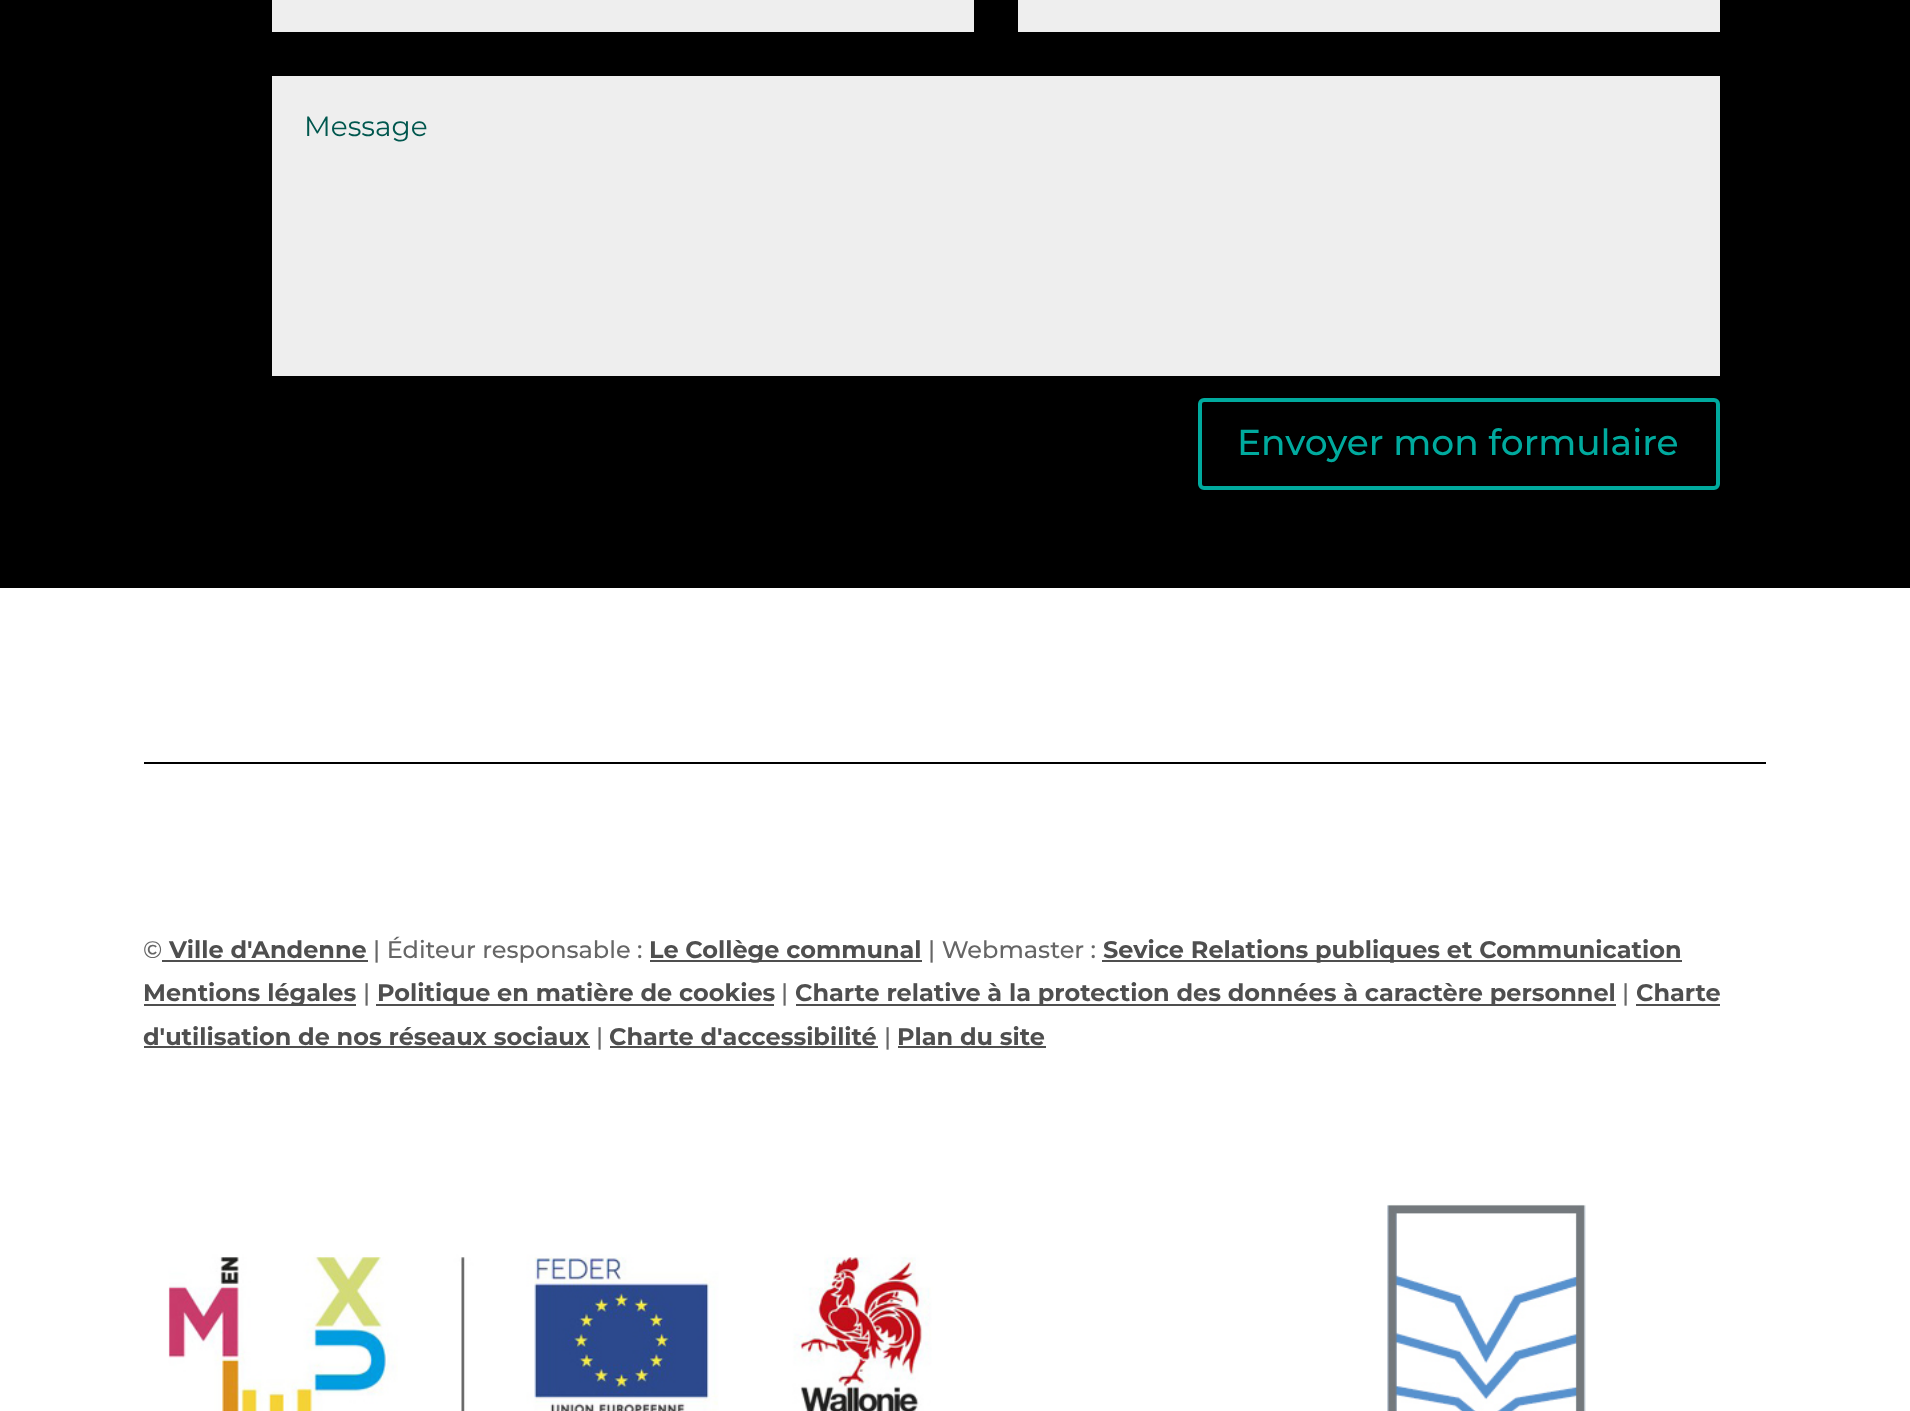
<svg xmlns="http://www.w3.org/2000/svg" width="1910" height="1411">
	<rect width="100%" height="100%" fill="#FFFFFF" />
	<rect x="0" y="0" width="1910" height="588" fill="#000000" />
	<rect x="272" y="0" width="702" height="32" fill="#EEEEEE" />
	<rect x="1018" y="0" width="702" height="32" fill="#EEEEEE" />
	<rect x="272" y="76" width="1448" height="300" fill="#EEEEEE" />
	<text x="304" y="136" font-family="Montserrat" font-size="28" font-weight="100" fill="#00574E">Message</text>
	<rect x="1200" y="400" width="518" height="88" rx="4" fill="none" stroke="#00AA9E" stroke-width="4" />
	<text x="1237" y="455" font-family="'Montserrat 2'" font-size="36" font-weight="100" fill="#00AA9E">Envoyer mon formulaire</text>
	<rect x="144" y="762" width="1622" height="2" fill="#000000" />
	<text x="143" y="958" font-family="'Montserrat 2'" font-size="24" font-weight="100" fill="#666666">©</text>
	<text x="169" y="958" font-family="'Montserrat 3'" font-size="24" font-weight="100" fill="#4F4F4F">Ville d'Andenne</text>
	<rect x="162" y="960" width="206" height="2" fill="#4F4F4F" />
	<text x="373" y="958" font-family="'Montserrat 2'" font-size="24" font-weight="100" fill="#666666">| Éditeur responsable :</text>
	<rect x="650" y="960" width="272" height="2" fill="#4F4F4F" />
	<text x="649" y="958" font-family="'Montserrat 3'" font-size="24" font-weight="100" fill="#4F4F4F">Le Collège communal</text>
	<text x="928" y="958" font-family="'Montserrat 2'" font-size="24" font-weight="100" fill="#666666">| Webmaster :</text>
	<rect x="1102" y="960" width="580" height="2" fill="#4F4F4F" />
	<text x="1103" y="958" font-family="'Montserrat 3'" font-size="24" font-weight="100" fill="#4F4F4F">Sevice Relations publiques et Communication</text>
	<rect x="144" y="1004" width="212" height="2" fill="#4F4F4F" />
	<text x="143" y="1001" font-family="'Montserrat 3'" font-size="24" font-weight="100" fill="#4F4F4F">Mentions légales</text>
	<text x="363" y="1001" font-family="'Montserrat 2'" font-size="24" font-weight="100" fill="#666666">|</text>
	<rect x="376" y="1004" width="398" height="2" fill="#4F4F4F" />
	<text x="377" y="1001" font-family="'Montserrat 3'" font-size="24" font-weight="100" fill="#4F4F4F">Politique en matière de cookies</text>
	<text x="781" y="1001" font-family="'Montserrat 2'" font-size="24" font-weight="100" fill="#666666">|</text>
	<rect x="796" y="1004" width="820" height="2" fill="#4F4F4F" />
	<text x="795" y="1001" font-family="'Montserrat 3'" font-size="24" font-weight="100" fill="#4F4F4F">Charte relative à la protection des données à caractère personnel</text>
	<text x="1622" y="1001" font-family="'Montserrat 2'" font-size="24" font-weight="100" fill="#666666">|</text>
	<text x="1636" y="1001" font-family="'Montserrat 3'" font-size="24" font-weight="100" fill="#4F4F4F">Charte</text>
	<rect x="1636" y="1004" width="84" height="2" fill="#4F4F4F" />
	<text x="143" y="1045" font-family="'Montserrat 3'" font-size="24" font-weight="100" fill="#4F4F4F">d'utilisation de nos réseaux sociaux</text>
	<rect x="144" y="1046" width="446" height="2" fill="#4F4F4F" />
	<text x="596" y="1045" font-family="'Montserrat 2'" font-size="24" font-weight="100" fill="#666666">|</text>
	<text x="609" y="1045" font-family="'Montserrat 3'" font-size="24" font-weight="100" fill="#4F4F4F">Charte d'accessibilité</text>
	<rect x="610" y="1046" width="268" height="2" fill="#4F4F4F" />
	<text x="884" y="1045" font-family="'Montserrat 2'" font-size="24" font-weight="100" fill="#666666">|</text>
	<text x="897" y="1045" font-family="'Montserrat 3'" font-size="24" font-weight="100" fill="#4F4F4F">Plan du site</text>
	<rect x="898" y="1046" width="148" height="2" fill="#4F4F4F" />
	<image x="168" y="1204" width="1418" height="207" href="assets/img1.png" />
</svg>
